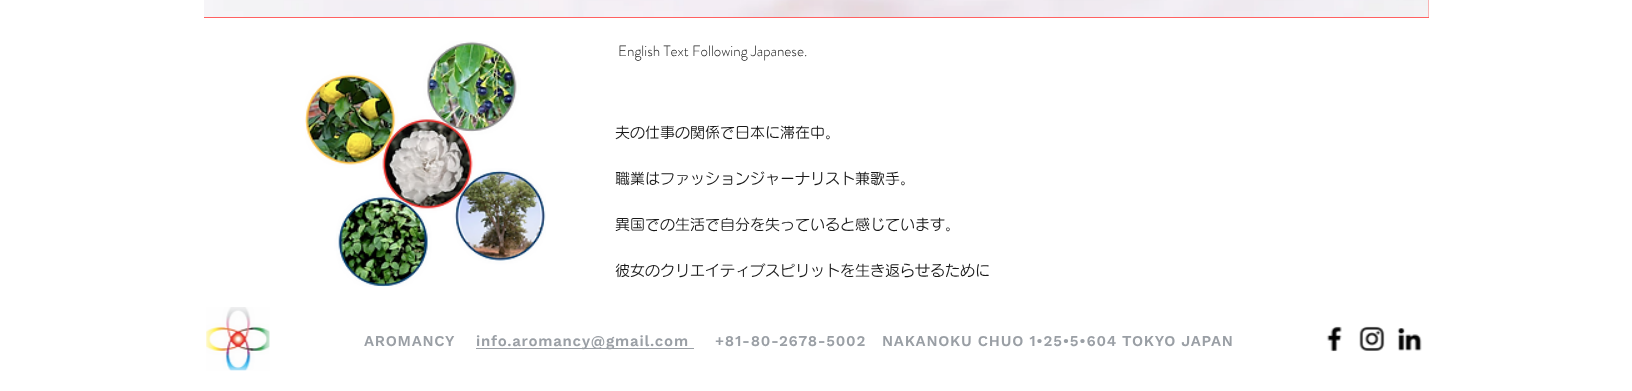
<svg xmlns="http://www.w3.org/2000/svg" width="1632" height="391">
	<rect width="100%" height="100%" fill="#FFFFFF" />
	<rect x="204" y="0" width="1225" height="18" fill="#FF6161" />
	<image x="204" y="0" width="1225" height="17" href="assets/img1.png" />
	<image x="305" y="41" width="241" height="246" href="assets/img2.png" />
	<text x="618" y="56" font-family="'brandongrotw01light'" font-size="15" font-weight="300" fill="#181818">English Text Following Japanese.</text>
	<g font-family="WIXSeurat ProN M" font-size="15" font-weight="500" fill="#181818">
		<text x="615" y="138">夫の仕事の関係で日本に滞在中。</text>
		<text x="615" y="184">職業はファッションジャーナリスト兼歌手。</text>
		<text x="615" y="230">異国での生活で自分を失っていると感じています。</text>
		<text x="615" y="276">彼女のクリエイティブスピリットを生き返らせるために</text>
	</g>
	<image x="206" y="307" width="64" height="64" href="assets/img3.png" />
	<text x="364" y="346" font-family="Work Sans" font-size="15" font-weight="600" letter-spacing="0.75" fill="#9A9FA5">AROMANCY</text>
	<rect x="476" y="348" width="218" height="1" fill="#9A9FA5" />
	<g font-family="Work Sans" font-size="15" font-weight="600" letter-spacing="0.75" fill="#9A9FA5">
		<text x="476" y="346">info.aromancy@gmail.com</text>
		<text x="715" y="346" xml:space="preserve">+81-80-2678-5002   NAKANOKU CHUO 1•25•5•604 TOKYO JAPAN</text>
	</g>
	<image x="1326" y="326" width="16" height="26" href="assets/img4.png" />
	<image x="1359" y="326" width="26" height="25" href="assets/img5.png" />
	<image x="1397" y="328" width="25" height="23" href="assets/img6.png" />
</svg>
